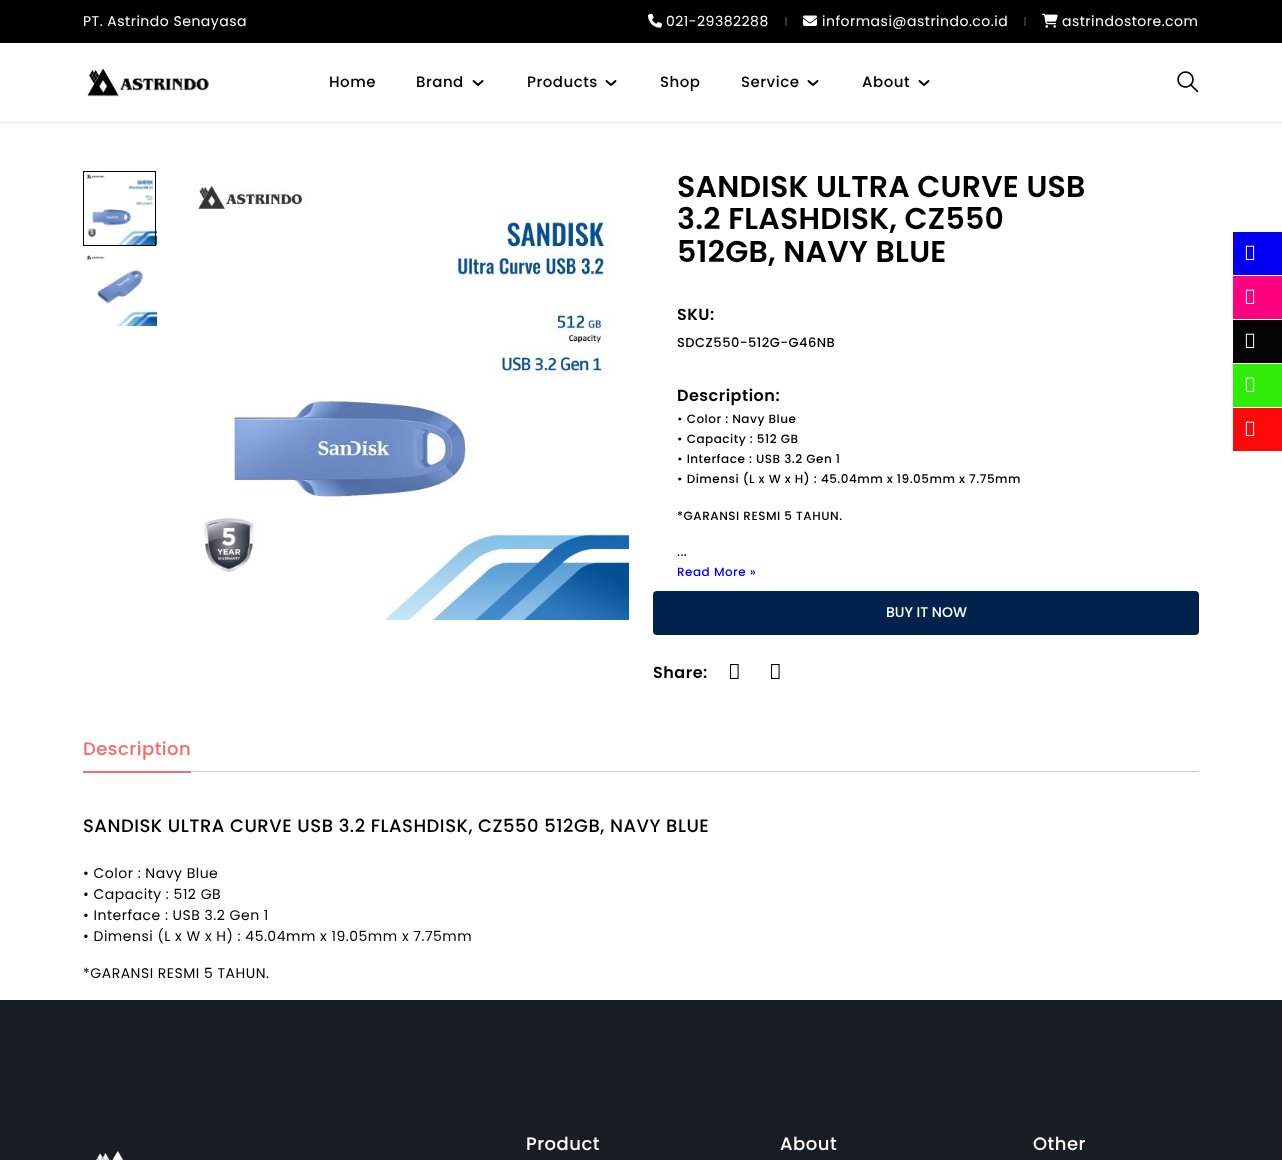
<svg xmlns="http://www.w3.org/2000/svg" width="1282" height="1160">
	<rect width="100%" height="100%" fill="#FFFFFF" />
	<rect x="0" y="0" width="1282" height="43" fill="#000000" />
	<text x="83" y="26" font-family="Poppins" font-size="14" letter-spacing="0.5" fill="#FFFFFF">PT. Astrindo Senayasa</text>
	<image x="648" y="13" width="14" height="15" href="assets/img1.png" />
	<text x="666" y="26" font-family="Poppins" font-size="14" letter-spacing="0.5" fill="#FFFFFF">021-29382288</text>
	<path d="M786 17.5V25.5" fill="none" stroke="#666666" stroke-linecap="round" />
	<image x="803" y="15" width="14" height="11" href="assets/img2.png" />
	<text x="822" y="26" font-family="Poppins" font-size="14" letter-spacing="0.5" fill="#FFFFFF">informasi@astrindo.co.id</text>
	<path d="M1025 17.5V25.5" fill="none" stroke="#666666" stroke-linecap="round" />
	<image x="1042" y="13" width="16" height="15" href="assets/img3.png" />
	<text x="1062" y="26" font-family="Poppins" font-size="14" letter-spacing="0.5" fill="#FFFFFF">astrindostore.com</text>
	<rect x="0" y="122" width="1282" height="1" fill="#E6E6E6" />
	<image x="87" y="69" width="122" height="28" href="assets/img4.png" />
	<g font-family="Poppins" font-size="15" font-weight="500" letter-spacing="0.5" fill="#000000">
		<text x="329" y="87">Home</text>
		<text x="416" y="87">Brand</text>
	</g>
	<path d="M473.5 81L478 85L482.5 81" fill="none" stroke="#000000" stroke-width="1.9" stroke-linecap="round" stroke-linejoin="round" />
	<text x="527" y="87" font-family="Poppins" font-size="15" font-weight="500" letter-spacing="0.5" fill="#000000">Products</text>
	<path d="M606.5 81L611 85L615.5 81" fill="none" stroke="#000000" stroke-width="1.9" stroke-linecap="round" stroke-linejoin="round" />
	<g font-family="Poppins" font-size="15" font-weight="500" letter-spacing="0.5" fill="#000000">
		<text x="660" y="87">Shop</text>
		<text x="741" y="87">Service</text>
	</g>
	<path d="M808.5 81L813 85L817.5 81" fill="none" stroke="#000000" stroke-width="1.9" stroke-linecap="round" stroke-linejoin="round" />
	<text x="862" y="87" font-family="Poppins" font-size="15" font-weight="500" letter-spacing="0.5" fill="#000000">About</text>
	<path d="M919.5 81L924 85L928.5 81" fill="none" stroke="#000000" stroke-width="1.9" stroke-linecap="round" stroke-linejoin="round" />
	<image x="1177" y="71" width="22" height="22" href="assets/img5.png" />
	<image x="86" y="174" width="71" height="71" href="assets/img6.png" />
	<rect x="83.5" y="171.5" width="72" height="74" fill="none" stroke="#000000" />
	<image x="86" y="255" width="71" height="71" href="assets/img7.png" />
	<image x="198" y="186" width="431" height="434" href="assets/img8.png" />
	<g font-family="Poppins" font-size="30" font-weight="600" letter-spacing="0.25" fill="#000000">
		<text x="677" y="197">SANDISK ULTRA CURVE USB</text>
		<text x="677" y="229">3.2 FLASHDISK, CZ550</text>
		<text x="677" y="262">512GB, NAVY BLUE</text>
	</g>
	<text x="677" y="320" font-family="Poppins" font-size="16" font-weight="600" letter-spacing="0.5" fill="#000000">SKU:</text>
	<text x="677" y="347" font-family="Poppins" font-size="13" font-weight="500" letter-spacing="0.5" fill="#000000">SDCZ550-512G-G46NB</text>
	<text x="677" y="401" font-family="Poppins" font-size="16" font-weight="600" letter-spacing="0.5" fill="#000000">Description:</text>
	<g font-family="Poppins" font-size="12" font-weight="500" letter-spacing="0.5" fill="#000000">
		<text x="677" y="423">• Color : Navy Blue</text>
		<text x="677" y="443">• Capacity : 512 GB</text>
		<text x="677" y="463">• Interface : USB 3.2 Gen 1</text>
		<text x="677" y="483">• Dimensi (L x W x H) : 45.04mm x 19.05mm x 7.75mm</text>
		<text x="677" y="520">*GARANSI RESMI 5 TAHUN.</text>
		<text x="677" y="556">...</text>
	</g>
	<text x="677" y="576" font-family="Poppins" font-size="12" font-weight="500" letter-spacing="0.5" fill="#0000FF">Read More »</text>
	<rect x="653" y="591" width="546" height="44" rx="4" fill="#00234D" />
	<text x="886" y="617" font-family="Poppins" font-size="14" font-weight="500" fill="#FFFFFF">BUY IT NOW</text>
	<text x="653" y="678" font-family="Poppins" font-size="16" font-weight="600" letter-spacing="0.5" fill="#000000">Share:</text>
	<image x="729" y="664" width="10" height="15" href="assets/img9.png" />
	<image x="770" y="664" width="10" height="15" href="assets/img10.png" />
	<rect x="1233" y="232" width="49" height="43" fill="#0400F5" />
	<image x="1245" y="245" width="10" height="15" href="assets/img11.png" />
	<rect x="1233" y="276" width="49" height="43" fill="#FF0080" />
	<image x="1245" y="289" width="10" height="15" href="assets/img12.png" />
	<rect x="1233" y="320" width="49" height="43" fill="#050505" />
	<image x="1245" y="333" width="10" height="15" href="assets/img13.png" />
	<rect x="1233" y="364" width="49" height="43" fill="#2EED07" />
	<image x="1245" y="377" width="10" height="15" href="assets/img14.png" />
	<rect x="1233" y="408" width="49" height="43" fill="#FD0808" />
	<image x="1245" y="421" width="10" height="15" href="assets/img15.png" />
	<rect x="191" y="771" width="1008" height="1" fill="#CDCFD1" />
	<text x="83" y="755" font-family="Poppins" font-size="18" font-weight="500" letter-spacing="0.5" fill="#F76B6A">Description</text>
	<rect x="83" y="771" width="108" height="2" fill="#F76B6A" />
	<text x="83" y="832" font-family="Poppins" font-size="18" font-weight="500" letter-spacing="0.5" fill="#000000">SANDISK ULTRA CURVE USB 3.2 FLASHDISK, CZ550 512GB, NAVY BLUE</text>
	<g font-family="Poppins" font-size="14" letter-spacing="0.5" fill="#000000">
		<text x="83" y="878">• Color : Navy Blue</text>
		<text x="83" y="899">• Capacity : 512 GB</text>
		<text x="83" y="920">• Interface : USB 3.2 Gen 1</text>
		<text x="83" y="941">• Dimensi (L x W x H) : 45.04mm x 19.05mm x 7.75mm</text>
		<text x="83" y="978">*GARANSI RESMI 5 TAHUN.</text>
	</g>
	<rect x="0" y="1000" width="1282" height="160" fill="#191E24" />
	<g font-family="Poppins" font-size="18" font-weight="500" letter-spacing="0.5" fill="#FFFFFF">
		<text x="526" y="1150">Product</text>
		<text x="780" y="1150">About</text>
		<text x="1033" y="1150">Other</text>
	</g>
	<image x="96" y="1151" width="28" height="9" href="assets/img16.png" />
</svg>
